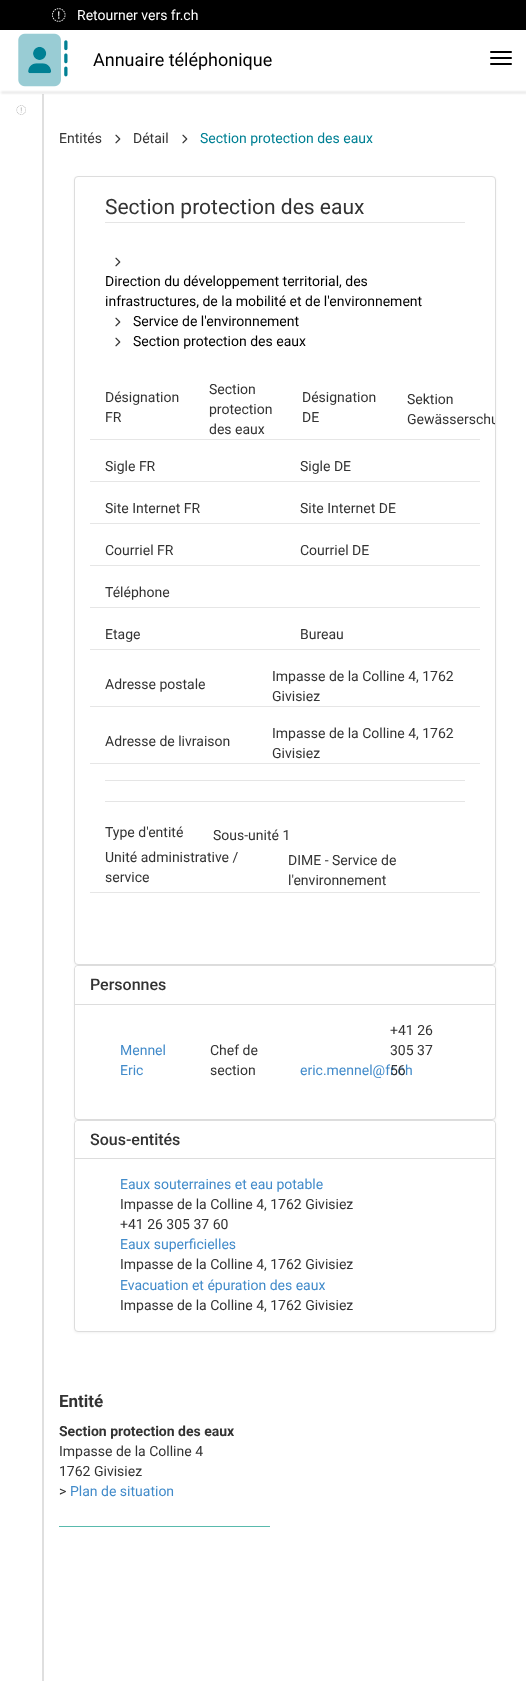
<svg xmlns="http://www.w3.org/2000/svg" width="526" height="1681">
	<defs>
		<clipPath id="clip1"><rect x="75" y="177" width="420" height="787" rx="3" /></clipPath>
	</defs>
	<rect width="100%" height="100%" fill="#FFFFFF" />
	<rect x="0" y="0" width="526" height="30" fill="#000000" />
	<image x="52" y="8" width="14" height="14" href="assets/img1.png" />
	<text x="77" y="20" font-family="Roboto" font-size="14" fill="#FFFFFF">Retourner vers fr.ch</text>
	<image x="18" y="33" width="50" height="54" href="assets/img2.png" />
	<text x="93" y="66" font-family="Roboto" font-size="18" fill="#000000">Annuaire téléphonique</text>
	<rect x="490" y="51" width="22" height="2" rx="1" fill="#000000" />
	<rect x="490" y="57" width="22" height="2" rx="1" fill="#000000" />
	<rect x="490" y="63" width="22" height="2" rx="1" fill="#000000" />
	<rect x="42" y="94" width="2" height="1587" fill="#DFDFDF" />
	<rect x="1" y="92" width="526" height="1" fill="#000000" fill-opacity="0.2" filter="blur(1px)" />
	<image x="16" y="105" width="10" height="10" href="assets/img3.png" />
	<text x="59" y="143" font-family="Roboto" font-size="14" fill="#333333">Entités</text>
	<image x="115" y="134" width="6" height="10" href="assets/img4.png" />
	<text x="133" y="143" font-family="Roboto" font-size="14" fill="#333333">Détail</text>
	<image x="182" y="134" width="6" height="10" href="assets/img4.png" />
	<text x="200" y="143" font-family="Roboto" font-size="14" fill="#008094">Section protection des eaux</text>
	<rect x="74" y="177" width="422" height="789" rx="4" fill="#000000" fill-opacity="0.05" filter="blur(1px)" />
	<rect x="74.5" y="176.5" width="421" height="788" rx="3.5" fill="#FFFFFF" stroke="#DDDDDD" />
	<rect x="105" y="222" width="360" height="1" fill="#E5E5E5" />
	<text x="105" y="214" font-family="Roboto" font-size="21" fill="#333333">Section protection des eaux</text>
	<image x="115" y="257" width="6" height="10" href="assets/img4.png" />
	<g font-family="Roboto" font-size="14" fill="#000000">
		<text x="105" y="286">Direction du développement territorial, des</text>
		<text x="105" y="306">infrastructures, de la mobilité et de l'environnement</text>
	</g>
	<image x="115" y="317" width="6" height="10" href="assets/img4.png" />
	<text x="133" y="326" font-family="Roboto" font-size="14" fill="#000000">Service de l'environnement</text>
	<image x="115" y="337" width="6" height="10" href="assets/img4.png" />
	<text x="133" y="346" font-family="Roboto" font-size="14" fill="#000000">Section protection des eaux</text>
	<rect x="90" y="439" width="390" height="1" fill="#E6E6E6" />
	<g font-family="Roboto" font-size="14" fill="#333333">
		<text x="105" y="402">Désignation</text>
		<text x="105" y="422">FR</text>
		<text x="209" y="394">Section</text>
		<text x="209" y="414">protection</text>
		<text x="209" y="434">des eaux</text>
		<text x="302" y="402">Désignation</text>
		<text x="302" y="422">DE</text>
		<text x="407" y="404">Sektion</text>
	</g>
	<g clip-path="url(#clip1)">
		<text x="407" y="424" font-family="Roboto" font-size="14" fill="#333333">Gewässerschu</text>
	</g>
	<rect x="90" y="481" width="390" height="1" fill="#E6E6E6" />
	<g font-family="Roboto" font-size="14" fill="#333333">
		<text x="105" y="471">Sigle FR</text>
		<text x="300" y="471">Sigle DE</text>
	</g>
	<rect x="90" y="523" width="390" height="1" fill="#E6E6E6" />
	<g font-family="Roboto" font-size="14" fill="#333333">
		<text x="105" y="513">Site Internet FR</text>
		<text x="300" y="513">Site Internet DE</text>
	</g>
	<rect x="90" y="565" width="390" height="1" fill="#E6E6E6" />
	<g font-family="Roboto" font-size="14" fill="#333333">
		<text x="105" y="555">Courriel FR</text>
		<text x="300" y="555">Courriel DE</text>
	</g>
	<rect x="90" y="607" width="390" height="1" fill="#E6E6E6" />
	<text x="105" y="597" font-family="Roboto" font-size="14" fill="#333333">Téléphone</text>
	<rect x="90" y="649" width="390" height="1" fill="#E6E6E6" />
	<g font-family="Roboto" font-size="14" fill="#333333">
		<text x="105" y="639">Etage</text>
		<text x="300" y="639">Bureau</text>
	</g>
	<rect x="90" y="706" width="390" height="1" fill="#E6E6E6" />
	<g font-family="Roboto" font-size="14" fill="#333333">
		<text x="105" y="689">Adresse postale</text>
		<text x="272" y="681">Impasse de la Colline 4, 1762</text>
		<text x="272" y="701">Givisiez</text>
	</g>
	<rect x="90" y="763" width="390" height="1" fill="#E6E6E6" />
	<g font-family="Roboto" font-size="14" fill="#333333">
		<text x="105" y="746">Adresse de livraison</text>
		<text x="272" y="738">Impasse de la Colline 4, 1762</text>
		<text x="272" y="758">Givisiez</text>
	</g>
	<rect x="105" y="780" width="360" height="1" fill="#E5E5E5" />
	<rect x="105" y="801" width="360" height="1" fill="#E5E5E5" />
	<g font-family="Roboto" font-size="14" fill="#333333">
		<text x="105" y="837">Type d'entité</text>
		<text x="213" y="840">Sous-unité 1</text>
	</g>
	<rect x="90" y="892" width="390" height="1" fill="#E6E6E6" />
	<g font-family="Roboto" font-size="14" fill="#333333">
		<text x="105" y="862">Unité administrative /</text>
		<text x="105" y="882">service</text>
		<text x="288" y="865">DIME - Service de</text>
		<text x="288" y="885">l'environnement</text>
	</g>
	<rect x="74" y="966" width="422" height="155" rx="4" fill="#000000" fill-opacity="0.05" filter="blur(1px)" />
	<rect x="74.5" y="965.5" width="421" height="154" rx="3.5" fill="#FFFFFF" stroke="#DDDDDD" />
	<path d="M78 966H492C493.5 966 495 967.5 495 969V1004H75V969C75 967.5 76.5 966 78 966Z" fill="#FFFFFF" />
	<text x="90" y="990" font-family="Roboto" font-size="16" font-weight="500" fill="#333333">Personnes</text>
	<rect x="75" y="1004" width="420" height="1" fill="#DDDDDD" />
	<g font-family="Roboto" font-size="14" fill="#428BCA">
		<text x="120" y="1055">Mennel</text>
		<text x="120" y="1075">Eric</text>
	</g>
	<g font-family="Roboto" font-size="14" fill="#333333">
		<text x="210" y="1055">Chef de</text>
		<text x="210" y="1075">section</text>
		<text x="390" y="1035">+41 26</text>
		<text x="390" y="1055">305 37</text>
	</g>
	<text x="300" y="1075" font-family="Roboto" font-size="14" fill="#428BCA">eric.mennel@fr.ch</text>
	<text x="390" y="1075" font-family="Roboto" font-size="14" fill="#333333">56</text>
	<rect x="74" y="1121" width="422" height="212" rx="4" fill="#000000" fill-opacity="0.05" filter="blur(1px)" />
	<rect x="74.5" y="1120.5" width="421" height="211" rx="3.5" fill="#FFFFFF" stroke="#DDDDDD" />
	<path d="M78 1121H492C493.5 1121 495 1122.5 495 1124V1158H75V1124C75 1122.5 76.5 1121 78 1121Z" fill="#FFFFFF" />
	<text x="90" y="1145" font-family="Roboto" font-size="16" font-weight="500" fill="#333333">Sous-entités</text>
	<rect x="75" y="1158" width="420" height="1" fill="#DDDDDD" />
	<text x="120" y="1189" font-family="Roboto" font-size="14" fill="#428BCA">Eaux souterraines et eau potable</text>
	<g font-family="Roboto" font-size="14" fill="#333333">
		<text x="120" y="1209">Impasse de la Colline 4, 1762 Givisiez</text>
		<text x="120" y="1229">+41 26 305 37 60</text>
	</g>
	<text x="120" y="1249" font-family="Roboto" font-size="14" fill="#428BCA">Eaux superficielles</text>
	<text x="120" y="1269" font-family="Roboto" font-size="14" fill="#333333">Impasse de la Colline 4, 1762 Givisiez</text>
	<text x="120" y="1290" font-family="Roboto" font-size="14" fill="#428BCA">Evacuation et épuration des eaux</text>
	<text x="120" y="1310" font-family="Roboto" font-size="14" fill="#333333">Impasse de la Colline 4, 1762 Givisiez</text>
	<rect x="59" y="1526" width="211" height="1" fill="#59BAAD" />
	<text x="59" y="1407" font-family="Roboto" font-size="17" font-weight="700" fill="#333333">Entité</text>
	<text x="59" y="1436" font-family="Roboto" font-size="14" font-weight="700" fill="#333333">Section protection des eaux</text>
	<g font-family="Roboto" font-size="14" fill="#333333">
		<text x="59" y="1456">Impasse de la Colline 4</text>
		<text x="59" y="1476">1762 Givisiez</text>
		<text x="59" y="1496">&gt;</text>
	</g>
	<text x="70" y="1496" font-family="Roboto" font-size="14" fill="#428BCA">Plan de situation</text>
</svg>
